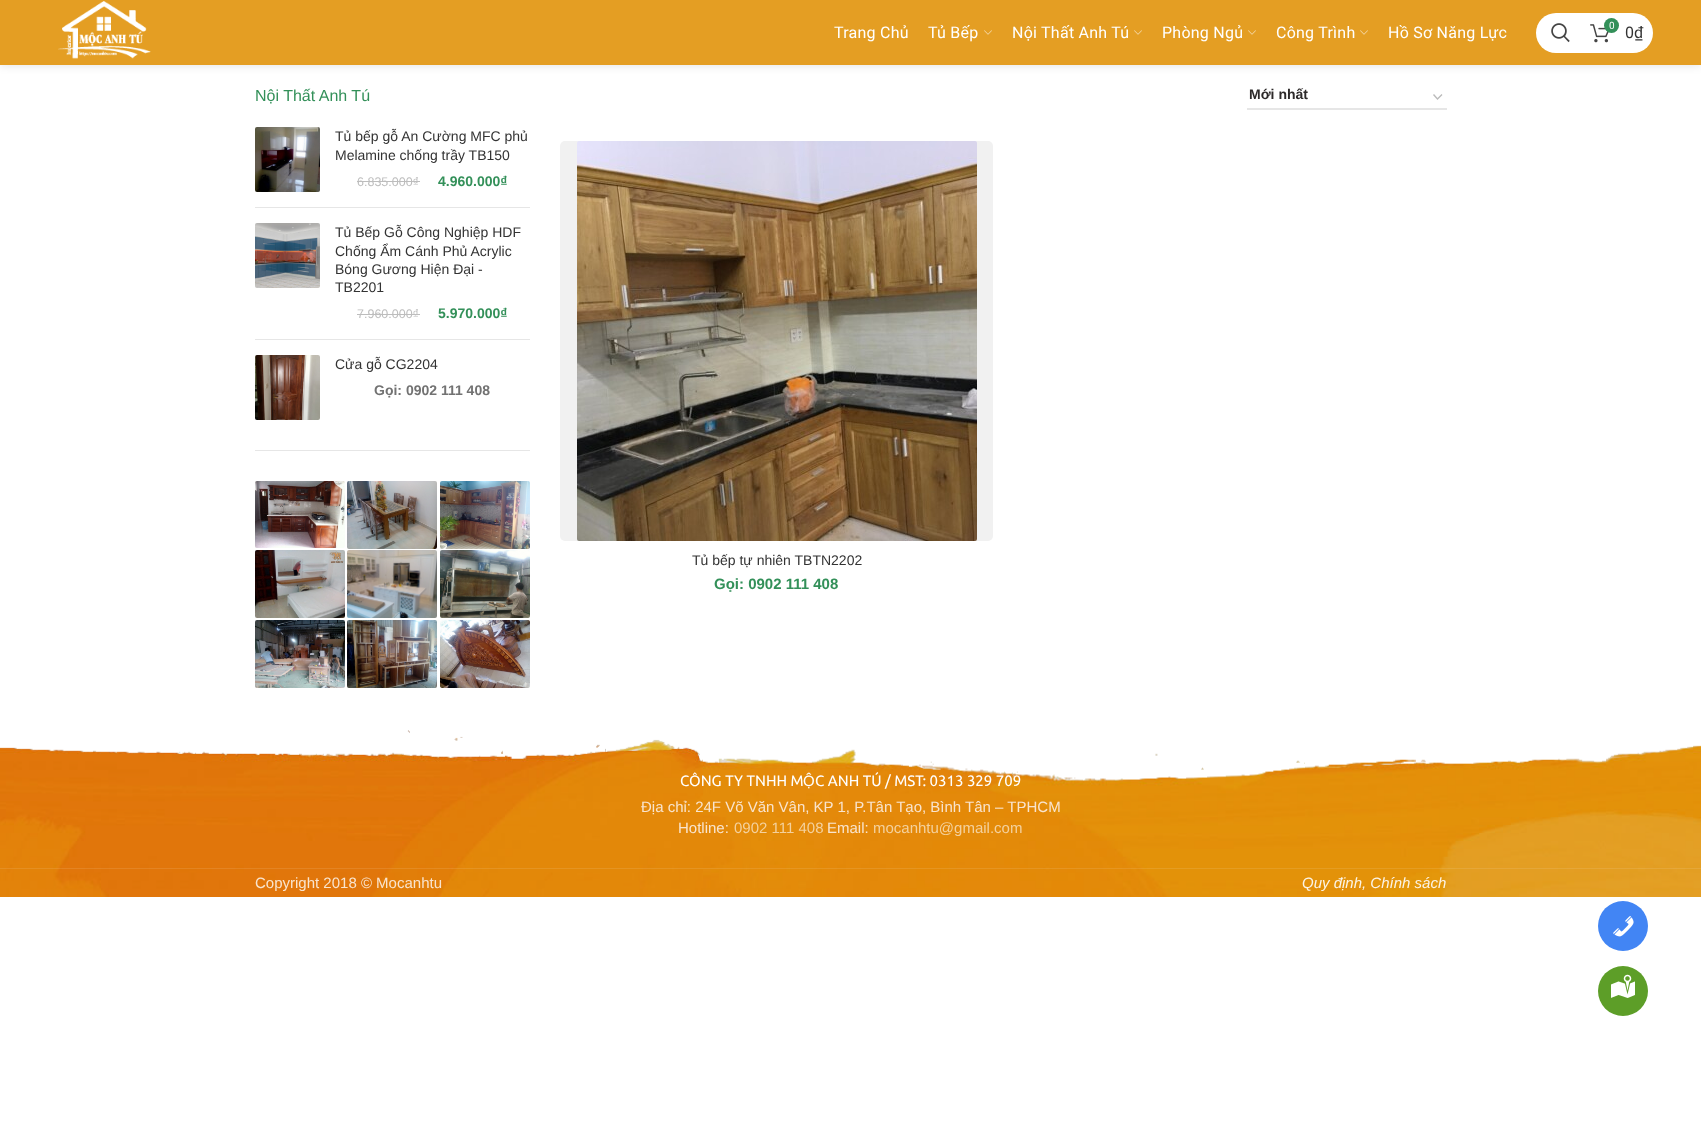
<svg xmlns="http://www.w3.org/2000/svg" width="1701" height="1136">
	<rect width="100%" height="100%" fill="#FFFFFF" />
	<rect x="0" y="1" width="1701" height="65" fill="#000000" fill-opacity="0.1" filter="blur(4px)" />
	<rect x="0" y="0" width="1701" height="65" fill="#E49E23" />
	<image x="58" y="1" width="93" height="58" href="assets/img1.png" />
	<g font-family="Roboto" font-size="16" letter-spacing="0.25" fill="#FFFFFF">
		<text x="834" y="38">Trang Chủ</text>
		<text x="928" y="38">Tủ Bếp</text>
	</g>
	<image x="984" y="30" width="8" height="5" href="assets/img2.png" />
	<text x="1012" y="38" font-family="Roboto" font-size="16" letter-spacing="0.25" fill="#FFFFFF">Nội Thất Anh Tú</text>
	<image x="1134" y="30" width="8" height="5" href="assets/img2.png" />
	<text x="1162" y="38" font-family="Roboto" font-size="16" letter-spacing="0.25" fill="#FFFFFF">Phòng Ngủ</text>
	<image x="1248" y="30" width="8" height="5" href="assets/img2.png" />
	<text x="1276" y="38" font-family="Roboto" font-size="16" letter-spacing="0.25" fill="#FFFFFF">Công Trình</text>
	<image x="1360" y="30" width="8" height="5" href="assets/img2.png" />
	<text x="1388" y="38" font-family="Roboto" font-size="16" letter-spacing="0.25" fill="#FFFFFF">Hồ Sơ Năng Lực</text>
	<rect x="1536" y="13" width="117" height="40" rx="20" fill="#FFFFFF" />
	<image x="1551" y="23" width="19" height="20" href="assets/img3.png" />
	<image x="1590" y="24" width="19" height="19" href="assets/img4.png" />
	<circle cx="1611.5" cy="25.5" r="7.5" fill="#339059" />
	<text x="1609" y="29" font-family="Roboto" font-size="10" fill="#FFFFFF">0</text>
	<text x="1625" y="38" font-family="Roboto" font-size="16" fill="#333333">0₫</text>
	<rect x="255" y="450" width="275" height="1" fill="#E6E6E6" />
	<text x="255" y="101" font-family="Liberation Sans" font-size="16" fill="#339059">Nội Thất Anh Tú</text>
	<rect x="255" y="207" width="275" height="1" fill="#E6E6E6" />
	<image x="255" y="127" width="65" height="65" href="assets/img5.png" />
	<g font-family="Liberation Sans" font-size="14" fill="#333333">
		<text x="335" y="141">Tủ bếp gỗ An Cường MFC phủ</text>
		<text x="335" y="160">Melamine chống trầy TB150</text>
	</g>
	<text x="357" y="186" font-family="Liberation Sans" font-size="12.5" fill="#BDBDBD">6.835.000₫</text>
	<rect x="357" y="181" width="63" height="1" fill="#BDBDBD" />
	<text x="438" y="186" font-family="Liberation Sans" font-size="14" font-weight="700" fill="#339059">4.960.000₫</text>
	<rect x="255" y="339" width="275" height="1" fill="#E6E6E6" />
	<image x="255" y="223" width="65" height="65" href="assets/img6.png" />
	<g font-family="Liberation Sans" font-size="14" fill="#333333">
		<text x="335" y="237">Tủ Bếp Gỗ Công Nghiệp HDF</text>
		<text x="335" y="256">Chống Ẩm Cánh Phủ Acrylic</text>
		<text x="335" y="274">Bóng Gương Hiện Đại -</text>
		<text x="335" y="292">TB2201</text>
	</g>
	<text x="357" y="318" font-family="Liberation Sans" font-size="12.5" fill="#BDBDBD">7.960.000₫</text>
	<rect x="357" y="314" width="63" height="1" fill="#BDBDBD" />
	<text x="438" y="318" font-family="Liberation Sans" font-size="14" font-weight="700" fill="#339059">5.970.000₫</text>
	<image x="255" y="355" width="65" height="65" href="assets/img7.png" />
	<text x="335" y="369" font-family="Liberation Sans" font-size="14" fill="#333333">Cửa gỗ CG2204</text>
	<text x="374" y="395" font-family="Liberation Sans" font-size="14" font-weight="700" fill="#727272">Gọi: 0902 111 408</text>
	<image x="255" y="481" width="90" height="67" href="assets/img8.png" />
	<image x="347" y="481" width="90" height="68" href="assets/img9.png" />
	<image x="440" y="481" width="90" height="68" href="assets/img10.png" />
	<image x="255" y="550" width="90" height="68" href="assets/img11.png" />
	<image x="347" y="550" width="90" height="68" href="assets/img12.png" />
	<image x="440" y="550" width="90" height="68" href="assets/img13.png" />
	<image x="255" y="620" width="90" height="68" href="assets/img14.png" />
	<image x="347" y="620" width="90" height="68" href="assets/img15.png" />
	<image x="440" y="620" width="90" height="68" href="assets/img16.png" />
	<path d="M1433.5 94.5L1437.5 99L1442 94.5" fill="none" stroke="#BBBBBB" stroke-width="1.4" />
	<rect x="1247" y="108" width="200" height="2" fill="#E6E6E6" />
	<text x="1249" y="99" font-family="Liberation Sans" font-size="14" font-weight="700" fill="#2D2A2A">Mới nhất</text>
	<rect x="560" y="141" width="433" height="400" rx="5" fill="#F1F1F1" />
	<image x="577" y="141" width="400" height="400" href="assets/img17.png" />
	<text x="692" y="565" font-family="Liberation Sans" font-size="14" fill="#333333">Tủ bếp tự nhiên TBTN2202</text>
	<text x="714" y="589" font-family="Liberation Sans" font-size="15" font-weight="700" fill="#339059">Gọi: 0902 111 408</text>
	<image x="0" y="730" width="1701" height="167" href="assets/img18.png" />
	<text x="680" y="786" font-family="Ubuntu" font-size="15" fill="#FFFFFF">CÔNG TY TNHH M</text>
	<text x="803" y="786" font-family="Liberation Sans" font-size="15" fill="#FFFFFF">Ộ</text>
	<text x="815" y="786" font-family="Ubuntu" font-size="15" fill="#FFFFFF">C ANH TÚ / MST: 0313 329 709</text>
	<g font-family="Liberation Sans" font-size="15" fill="#F9E4CE">
		<text x="641" y="812">Địa chỉ: 24F Võ Văn Vân, KP 1, P.Tân Tạo, Bình Tân – TPHCM</text>
		<text x="678" y="833">Hotline:</text>
	</g>
	<text x="734" y="833" font-family="Liberation Sans" font-size="15" fill="#F4D19D">0902 111 408</text>
	<text x="827" y="833" font-family="Liberation Sans" font-size="15" fill="#F9E4CE">Email:</text>
	<text x="873" y="833" font-family="Liberation Sans" font-size="15" fill="#F4D19D">mocanhtu@gmail.com</text>
	<rect x="0" y="868" width="1701" height="1" fill="#FFFFFF" fill-opacity="0.1" />
	<text x="255" y="888" font-family="Liberation Sans" font-size="15" fill="#F9E4CE">Copyright 2018 © Mocanhtu</text>
	<text x="1302" y="888" font-family="Liberation Sans" font-size="15" font-style="italic" fill="#FCF4E6">Quy định, Chính sách</text>
	<circle cx="1623" cy="926" r="25" fill="#4285F4" />
	<image x="1613" y="916" width="21" height="21" href="assets/img19.png" />
	<circle cx="1623" cy="991" r="25" fill="#5D9E28" />
	<image x="1611" y="974" width="24" height="24" href="assets/img20.png" />
</svg>
